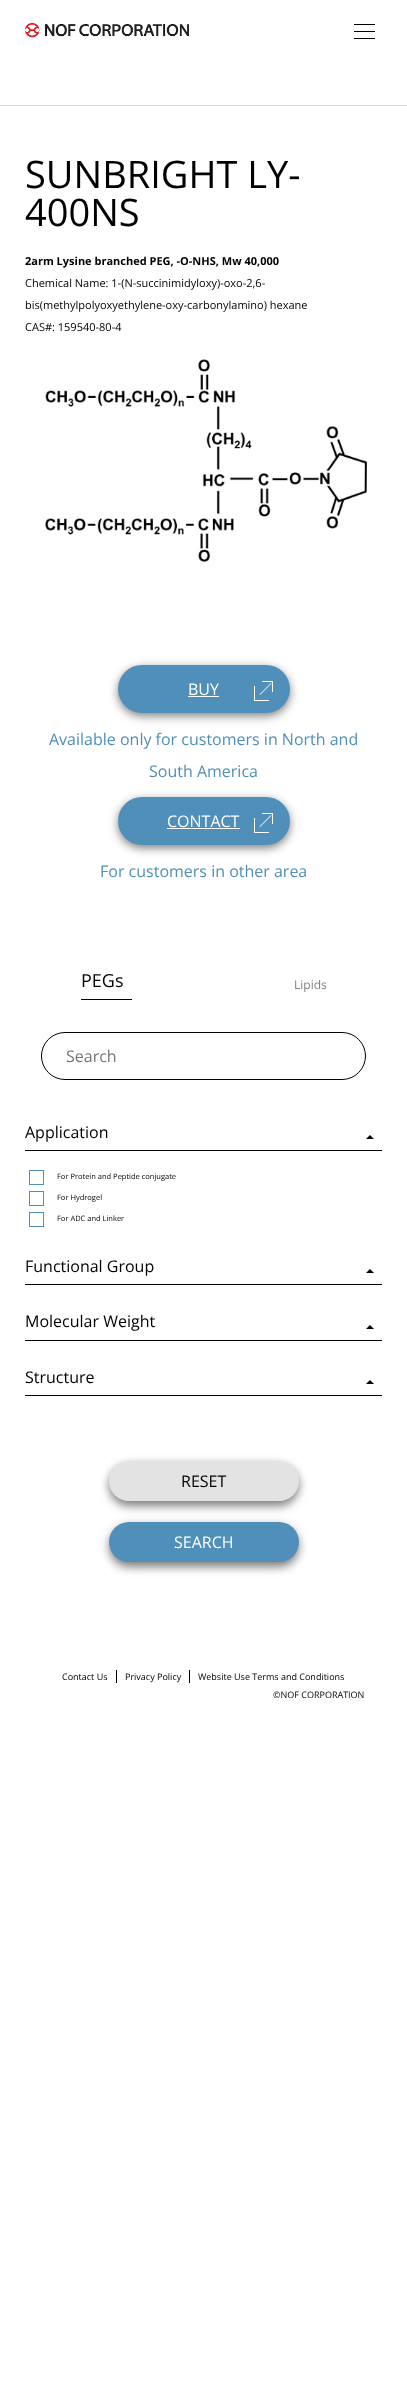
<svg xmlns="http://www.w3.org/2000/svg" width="407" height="2381">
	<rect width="100%" height="100%" fill="#FFFFFF" />
	<image x="25" y="23" width="164" height="15" href="assets/img1.png" />
	<rect x="354" y="24" width="21" height="1" fill="#000000" />
	<rect x="354" y="31" width="21" height="1" fill="#000000" />
	<rect x="354" y="38" width="21" height="1" fill="#000000" />
	<rect x="0" y="105" width="407" height="1" fill="#DADADA" />
	<g font-family="Open Sans" font-size="38" fill="#000000">
		<text x="25" y="188">SUNBRIGHT LY-</text>
		<text x="25" y="226">400NS</text>
	</g>
	<text x="25" y="265" font-family="Open Sans" font-size="11" font-weight="700" fill="#000000">2arm Lysine branched PEG, -O-NHS, Mw 40,000</text>
	<g font-family="Open Sans" font-size="11" fill="#000000">
		<text x="25" y="287">Chemical Name: 1-(N-succinimidyloxy)-oxo-2,6-</text>
		<text x="25" y="309">bis(methylpolyoxyethylene-oxy-carbonylamino) hexane</text>
		<text x="25" y="331">CAS#: 159540-80-4</text>
	</g>
	<image x="45" y="359" width="322" height="203" href="assets/img2.png" />
	<rect x="118" y="668" width="172" height="48" rx="24" fill="#000000" fill-opacity="0.5" filter="blur(5px)" />
	<rect x="118" y="665" width="172" height="48" rx="24" fill="#4F8FBA" />
	<text x="188" y="695" font-family="Open Sans" font-size="16" fill="#FFFFFF">BUY</text>
	<rect x="188" y="696" width="31" height="1" fill="#FFFFFF" />
	<rect x="262" y="681" width="11" height="1" fill="#FFFFFF" />
	<rect x="272" y="681" width="1" height="11" fill="#FFFFFF" />
	<path d="M271.5 683.5L260 695L259.5 694.5L271 683Z" fill="#FFFFFF" />
	<rect x="254" y="700" width="15" height="1" fill="#FFFFFF" />
	<rect x="254" y="686" width="1" height="15" fill="#FFFFFF" />
	<g font-family="Open Sans" font-size="16" fill="#4F8FBA">
		<text x="49" y="745">Available only for customers in North and</text>
		<text x="149" y="777">South America</text>
	</g>
	<rect x="118" y="800" width="172" height="48" rx="24" fill="#000000" fill-opacity="0.5" filter="blur(5px)" />
	<rect x="118" y="797" width="172" height="48" rx="24" fill="#4F8FBA" />
	<text x="167" y="827" font-family="Open Sans" font-size="16" fill="#FFFFFF">CONTACT</text>
	<rect x="167" y="828" width="73" height="1" fill="#FFFFFF" />
	<rect x="262" y="813" width="11" height="1" fill="#FFFFFF" />
	<rect x="272" y="813" width="1" height="11" fill="#FFFFFF" />
	<path d="M271.5 815.5L260 827L259.5 826.5L271 815Z" fill="#FFFFFF" />
	<rect x="254" y="832" width="15" height="1" fill="#FFFFFF" />
	<rect x="254" y="818" width="1" height="15" fill="#FFFFFF" />
	<text x="100" y="877" font-family="Open Sans" font-size="16" fill="#4F8FBA">For customers in other area</text>
	<rect x="81" y="999" width="51" height="1" fill="#000000" />
	<text x="81" y="987" font-family="Open Sans" font-size="18" fill="#000000">PEGs</text>
	<text x="294" y="989" font-family="Open Sans" font-size="12" fill="#808080">Lipids</text>
	<rect x="41.5" y="1032.5" width="324" height="47" rx="23.5" fill="none" stroke="#000000" />
	<text x="66" y="1062" font-family="Open Sans" font-size="16" fill="#757575">Search</text>
	<rect x="25" y="1150" width="357" height="1" fill="#000000" />
	<text x="25" y="1138" font-family="Open Sans" font-size="16" fill="#000000">Application</text>
	<path d="M374 1139H366L370 1135Z" fill="#000000" />
	<rect x="29.5" y="1170.5" width="14" height="14" fill="none" stroke="#4F8FBA" />
	<text x="57" y="1179" font-family="Open Sans" font-size="7.5" fill="#000000">For Protein and Peptide conjugate</text>
	<rect x="29.5" y="1191.5" width="14" height="14" fill="none" stroke="#4F8FBA" />
	<text x="57" y="1200" font-family="Open Sans" font-size="7.5" fill="#000000">For Hydrogel</text>
	<rect x="29.5" y="1212.5" width="14" height="14" fill="none" stroke="#4F8FBA" />
	<text x="57" y="1221" font-family="Open Sans" font-size="7.5" fill="#000000">For ADC and Linker</text>
	<rect x="25" y="1284" width="357" height="1" fill="#000000" />
	<text x="25" y="1272" font-family="Open Sans" font-size="16" fill="#000000">Functional Group</text>
	<path d="M374 1273H366L370 1269Z" fill="#000000" />
	<rect x="25" y="1340" width="357" height="1" fill="#000000" />
	<text x="25" y="1327" font-family="Open Sans" font-size="16" fill="#000000">Molecular Weight</text>
	<path d="M374 1329H366L370 1325Z" fill="#000000" />
	<rect x="25" y="1395" width="357" height="1" fill="#000000" />
	<text x="25" y="1383" font-family="Open Sans" font-size="16" fill="#000000">Structure</text>
	<path d="M374 1384H366L370 1380Z" fill="#000000" />
	<rect x="109" y="1465" width="190" height="41" rx="20.5" fill="#000000" fill-opacity="0.5" filter="blur(5px)" />
	<rect x="109" y="1461" width="190" height="40" rx="20" fill="#E3E3E3" />
	<text x="181" y="1487" font-family="Open Sans" font-size="16" fill="#000000">RESET</text>
	<rect x="109" y="1526" width="190" height="41" rx="20.5" fill="#000000" fill-opacity="0.5" filter="blur(5px)" />
	<rect x="109" y="1522" width="190" height="40" rx="20" fill="#4F8FBA" />
	<text x="174" y="1548" font-family="Open Sans" font-size="16" fill="#FFFFFF">SEARCH</text>
	<text x="62" y="1680" font-family="Open Sans" font-size="9" fill="#000000">Contact Us</text>
	<rect x="116" y="1670" width="1" height="13" fill="#000000" />
	<text x="125" y="1680" font-family="Open Sans" font-size="9" fill="#000000">Privacy Policy</text>
	<rect x="189" y="1670" width="1" height="13" fill="#000000" />
	<g font-family="Open Sans" font-size="9" fill="#000000">
		<text x="198" y="1680">Website Use Terms and Conditions</text>
		<text x="273" y="1698">©NOF CORPORATION</text>
	</g>
</svg>
